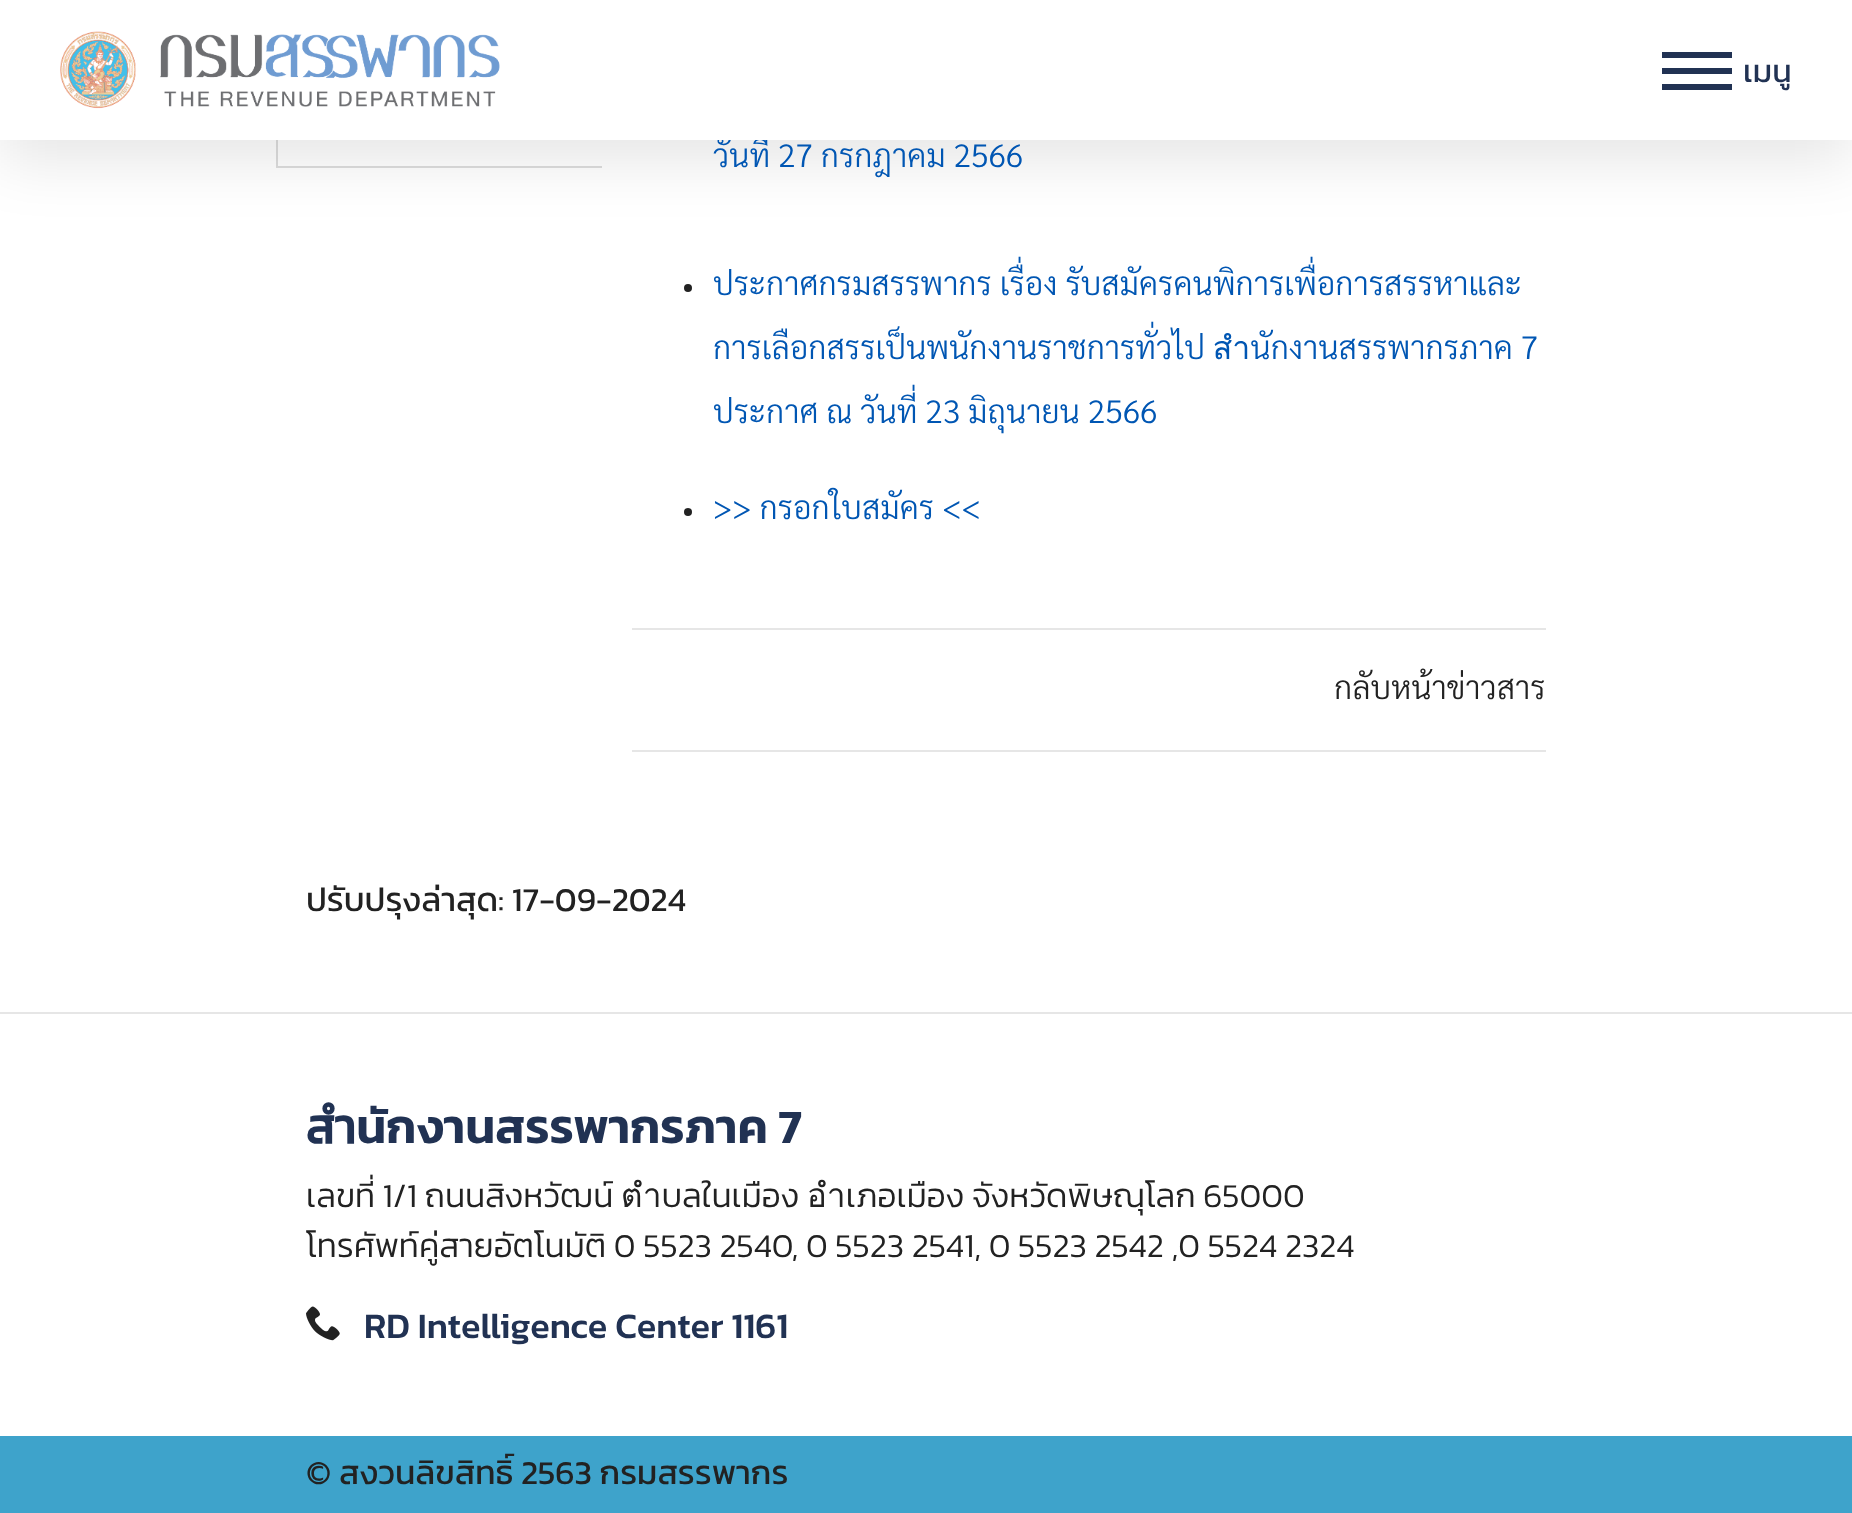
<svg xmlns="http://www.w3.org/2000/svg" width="1852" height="1513">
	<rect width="100%" height="100%" fill="#FFFFFF" />
	<rect x="276" y="140" width="2" height="28" fill="#DDDDDD" />
	<rect x="278" y="166" width="324" height="2" fill="#DDDDDD" />
	<rect x="0" y="20" width="1852" height="140" fill="#000000" fill-opacity="0.1" filter="blur(30px)" />
	<text x="713" y="167" font-family="Sarabun" font-size="32" font-weight="300" fill="#0056B3">วันที่ 27 กรกฎาคม 2566</text>
	<rect x="0" y="0" width="1852" height="140" fill="#FFFFFF" />
	<image x="60" y="31" width="440" height="78" href="assets/img1.png" />
	<rect x="1662" y="52" width="70" height="6" fill="#213253" />
	<rect x="1662" y="68" width="70" height="6" fill="#213253" />
	<text x="1743" y="82" font-family="Kanit" font-size="32" fill="#213253">เมนู</text>
	<rect x="1662" y="84" width="70" height="6" fill="#213253" />
	<circle cx="688" cy="288" r="4" fill="#222222" />
	<g font-family="Sarabun" font-size="32" font-weight="300" fill="#0056B3">
		<text x="713" y="295">ประกาศกรมสรรพากร เรื่อง รับสมัครคนพิการเพื่อการสรรหาและ</text>
		<text x="713" y="359">การเลือกสรรเป็นพนักงานราชการทั่วไป สำนักงานสรรพากรภาค 7</text>
		<text x="713" y="423">ประกาศ ณ วันที่ 23 มิถุนายน 2566</text>
	</g>
	<circle cx="688" cy="512" r="4" fill="#222222" />
	<text x="713" y="519" font-family="Sarabun" font-size="32" font-weight="300" fill="#0056B3">&gt;&gt; กรอกใบสมัคร &lt;&lt;</text>
	<rect x="632" y="628" width="914" height="2" fill="#E6E6E6" />
	<text x="1334" y="699" font-family="Sarabun" font-size="32" font-weight="300" fill="#222222">กลับหน้าข่าวสาร</text>
	<rect x="632" y="750" width="914" height="2" fill="#E6E6E6" />
	<text x="306" y="911" font-family="Kanit" font-size="33.6" fill="#222222">ปรับปรุงล่าสุด: 17-09-2024</text>
	<rect x="0" y="1012" width="1852" height="2" fill="#E6E6E6" />
	<text x="306" y="1143" font-family="Kanit" font-size="48" font-weight="600" fill="#213253">สำนักงานสรรพากรภาค 7</text>
	<g font-family="Kanit" font-size="33.6" font-weight="300" fill="#222222">
		<text x="306" y="1207" word-spacing="-0.25">เลขที่ 1/1 ถนนสิงหวัฒน์ ตำบลในเมือง อำเภอเมือง จังหวัดพิษณุโลก 65000</text>
		<text x="306" y="1257">โทรศัพท์คู่สายอัตโนมัติ 0 5523 2540, 0 5523 2541, 0 5523 2542 ,0 5524 2324</text>
	</g>
	<image x="306" y="1306" width="34" height="35" href="assets/img2.png" />
	<text x="364" y="1338" font-family="Kanit" font-size="36" font-weight="500" fill="#213253">RD Intelligence Center 1161</text>
	<rect x="0" y="1436" width="1852" height="77" fill="#3EA3CB" />
	<text x="306" y="1484" font-family="Kanit" font-size="33.6" fill="#222222">© สงวนลิขสิทธิ์ 2563 กรมสรรพากร</text>
</svg>
